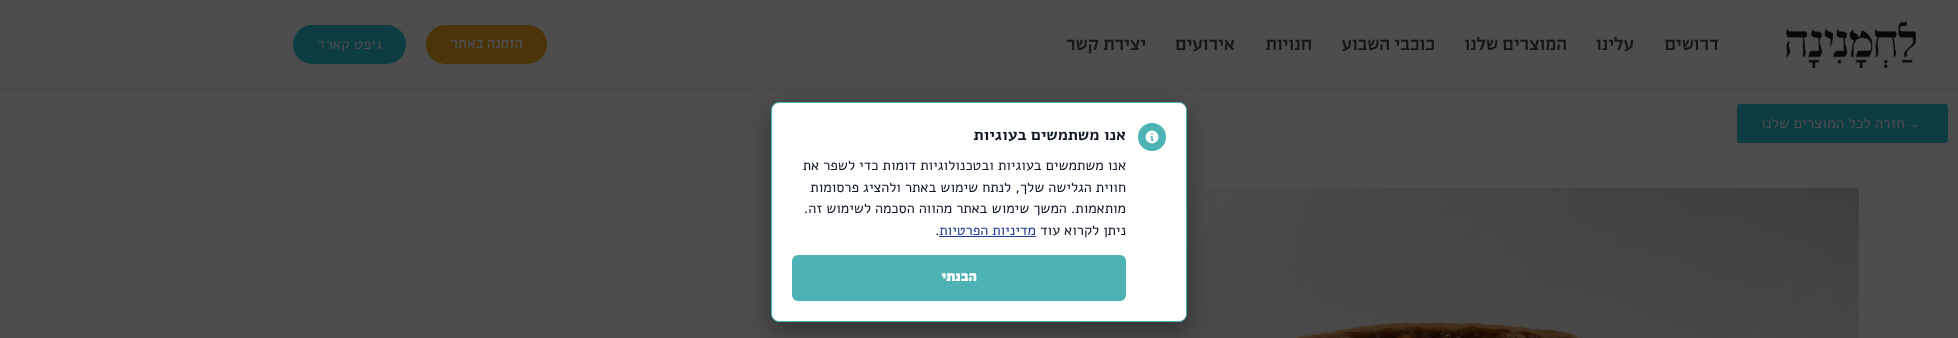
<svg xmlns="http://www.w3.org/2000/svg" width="1958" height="338">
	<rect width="100%" height="100%" fill="#4D4D4D" />
	<rect x="0" y="89" width="1958" height="1" fill="#464646" />
	<image x="1786" y="21" width="130" height="47" href="assets/img1.png" />
	<g font-family="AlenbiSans" font-size="19" direction="rtl" fill="#151515">
		<text x="1719" y="50">דרושים</text>
		<text x="1634" y="50">עלינו</text>
		<text x="1567" y="50">המוצרים שלנו</text>
		<text x="1435" y="50">כוכבי השבוע</text>
		<text x="1312" y="50">חנויות</text>
		<text x="1235" y="50">אירועים</text>
		<text x="1146" y="50">יצירת קשר</text>
	</g>
	<rect x="426" y="25" width="121" height="39" rx="19.5" fill="#4B3407" />
	<text x="523" y="48" font-family="AlenbiSans" font-size="15" direction="rtl" fill="#4D4D4D">הזמנה באתר</text>
	<rect x="293" y="25" width="113" height="39" rx="19.5" fill="#0D3C42" />
	<text x="382" y="49" font-family="Alef" font-size="15" direction="rtl" fill="#4D4D4D">גיפט קארד</text>
	<rect x="1737" y="104" width="211" height="39" rx="3" fill="#0D3C42" />
	<text x="1905" y="128" font-family="Liberation Sans" font-size="15" fill="#4D4D4D">→</text>
	<text x="1905" y="128" font-family="Alef" font-size="15" direction="rtl" fill="#4D4D4D">חזרה לכל המוצרים שלנו</text>
	<image x="1080" y="188" width="779" height="150" href="assets/img2.png" />
	<rect x="771" y="112" width="416" height="220" rx="8" fill="#000000" fill-opacity="0.35" filter="blur(12.5px)" />
	<rect x="771.5" y="102.5" width="415" height="219" rx="7.5" fill="#FFFFFF" stroke="#4CB2B3" />
	<circle cx="1152" cy="137" r="14" fill="#4CB2B3" />
	<image x="1145" y="130" width="14" height="14" href="assets/img3.png" />
	<text x="1126" y="140" font-family="Alef" font-size="16" font-weight="700" direction="rtl" fill="#111827">אנו משתמשים בעוגיות</text>
	<g font-family="Alef" font-size="14.4" direction="rtl" fill="#111827">
		<text x="1126" y="170">אנו משתמשים בעוגיות ובטכנולוגיות דומות כדי לשפר את</text>
		<text x="1126" y="192">חווית הגלישה שלך, לנתח שימוש באתר ולהציג פרסומות</text>
		<text x="1126" y="213">מותאמות. המשך שימוש באתר מהווה הסכמה לשימוש זה.</text>
		<text x="1126" y="235">ניתן לקרוא עוד</text>
	</g>
	<text x="1036" y="235" font-family="Alef" font-size="14.4" direction="rtl" fill="#1E3A8A">מדיניות הפרטיות</text>
	<rect x="939" y="236" width="97" height="1" fill="#1E3A8A" />
	<text x="935" y="235" font-family="Alef" font-size="14.4" fill="#111827">.</text>
	<rect x="792" y="255" width="334" height="46" rx="6" fill="#4CB2B3" />
	<text x="977" y="281" font-family="AlenbiSans" font-size="14.4" font-weight="900" direction="rtl" fill="#FFFFFF">הבנתי</text>
</svg>
